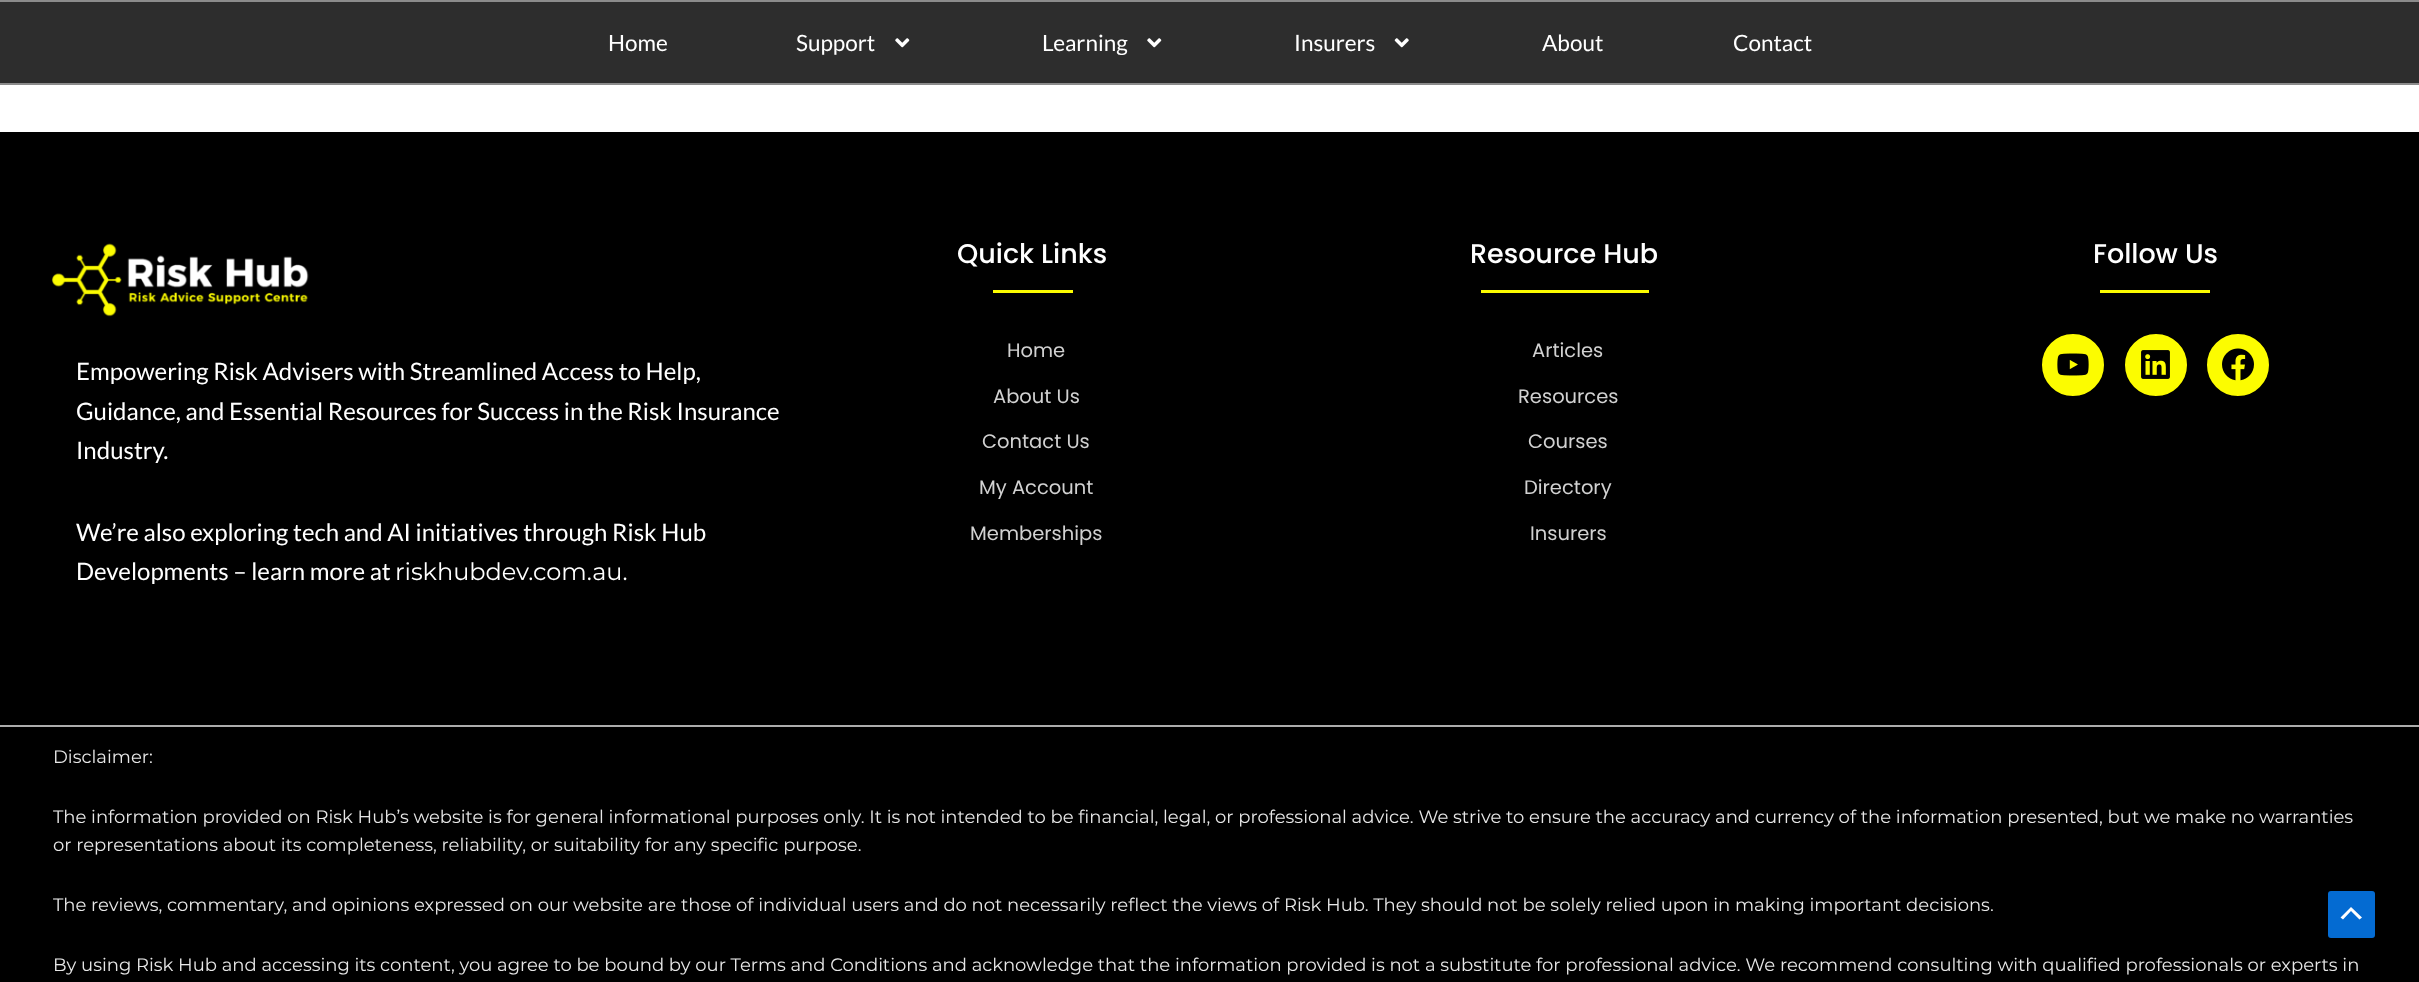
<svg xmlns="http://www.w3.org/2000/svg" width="2419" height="982">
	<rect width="100%" height="100%" fill="#FFFFFF" />
	<rect x="0" y="2" width="2419" height="81" fill="#2D2D2D" />
	<rect x="0" y="0" width="2419" height="2" fill="#8B8B8B" />
	<rect x="0" y="83" width="2419" height="2" fill="#8B8B8B" />
	<g font-family="Lato" font-size="22.5" fill="#FFFFFF">
		<text x="608" y="51">Home</text>
		<text x="796" y="51">Support</text>
	</g>
	<image x="895" y="38" width="15" height="10" href="assets/img1.png" />
	<text x="1042" y="51" font-family="Lato" font-size="22.5" fill="#FFFFFF">Learning</text>
	<image x="1147" y="38" width="15" height="10" href="assets/img1.png" />
	<text x="1294" y="51" font-family="Lato" font-size="22.5" fill="#FFFFFF">Insurers</text>
	<image x="1394" y="38" width="15" height="10" href="assets/img2.png" />
	<g font-family="Lato" font-size="22.5" fill="#FFFFFF">
		<text x="1542" y="51">About</text>
		<text x="1733" y="51">Contact</text>
	</g>
	<rect x="0" y="132" width="2419" height="593" fill="#000000" />
	<text x="957" y="263" font-family="Poppins" font-size="27" font-weight="500" fill="#FFFFFF">Quick Links</text>
	<rect x="993" y="290" width="80" height="3" fill="#FCFC00" />
	<g font-family="Poppins" font-size="19.5" fill="#D1D1D1">
		<text x="1007" y="357">Home</text>
		<text x="993" y="403">About Us</text>
		<text x="982" y="448">Contact Us</text>
		<text x="979" y="494">My Account</text>
		<text x="970" y="540">Memberships</text>
	</g>
	<text x="1470" y="263" font-family="Poppins" font-size="27" font-weight="500" fill="#FFFFFF">Resource Hub</text>
	<rect x="1481" y="290" width="168" height="3" fill="#FCFC00" />
	<g font-family="Poppins" font-size="19.5" fill="#D1D1D1">
		<text x="1532" y="357">Articles</text>
		<text x="1518" y="403">Resources</text>
		<text x="1528" y="448">Courses</text>
		<text x="1524" y="494">Directory</text>
		<text x="1530" y="540">Insurers</text>
	</g>
	<text x="2093" y="263" font-family="Poppins" font-size="27" font-weight="500" fill="#FFFFFF">Follow Us</text>
	<rect x="2100" y="290" width="110" height="3" fill="#FCFC00" />
	<circle cx="2073" cy="365" r="32" fill="#FCFC00" stroke="#000000" stroke-width="2" />
	<image x="2057" y="353" width="32" height="23" href="assets/img3.png" />
	<circle cx="2156" cy="365" r="32" fill="#FCFC00" stroke="#000000" stroke-width="2" />
	<image x="2141" y="350" width="29" height="29" href="assets/img4.png" />
	<circle cx="2238" cy="365" r="32" fill="#FCFC00" stroke="#000000" stroke-width="2" />
	<image x="2222" y="348" width="32" height="33" href="assets/img5.png" />
	<image x="51" y="243" width="258" height="74" href="assets/img6.png" />
	<g font-family="Lato" font-size="24" fill="#FFFFFF">
		<text x="76" y="380">Empowering Risk Advisers with Streamlined Access to Help,</text>
		<text x="76" y="420">Guidance, and Essential Resources for Success in the Risk Insurance</text>
		<text x="76" y="459">Industry.</text>
		<text x="76" y="541">We’re also exploring tech and AI initiatives through Risk Hub</text>
		<text x="76" y="580">Developments – learn more at</text>
	</g>
	<text x="395" y="580" font-family="Montserrat" font-size="24" fill="#FFFFFF">riskhubdev.com.au.</text>
	<rect x="0" y="727" width="2419" height="255" fill="#000000" />
	<rect x="0" y="725" width="2419" height="2" fill="#ACACAC" />
	<g font-family="Montserrat" font-size="18" fill="#E7E7E7">
		<text x="53" y="763">Disclaimer:</text>
		<text x="53" y="823">The information provided on Risk Hub’s website is for general informational purposes only. It is not intended to be financial, legal, or professional advice. We strive to ensure the accuracy and currency of the information presented, but we make no warranties</text>
		<text x="53" y="851">or representations about its completeness, reliability, or suitability for any specific purpose.</text>
		<text x="53" y="911">The reviews, commentary, and opinions expressed on our website are those of individual users and do not necessarily reflect the views of Risk Hub. They should not be solely relied upon in making important decisions.</text>
		<text x="53" y="971">By using Risk Hub and accessing its content, you agree to be bound by our Terms and Conditions and acknowledge that the information provided is not a substitute for professional advice. We recommend consulting with qualified professionals or experts in</text>
	</g>
	<rect x="2328" y="891" width="47" height="47" rx="3" fill="#046BD2" />
	<path d="M2362 917.5L2351 907L2340.5 917.5L2343 919.5L2351 911L2359.5 919.5Z" fill="#FFFFFF" />
</svg>
